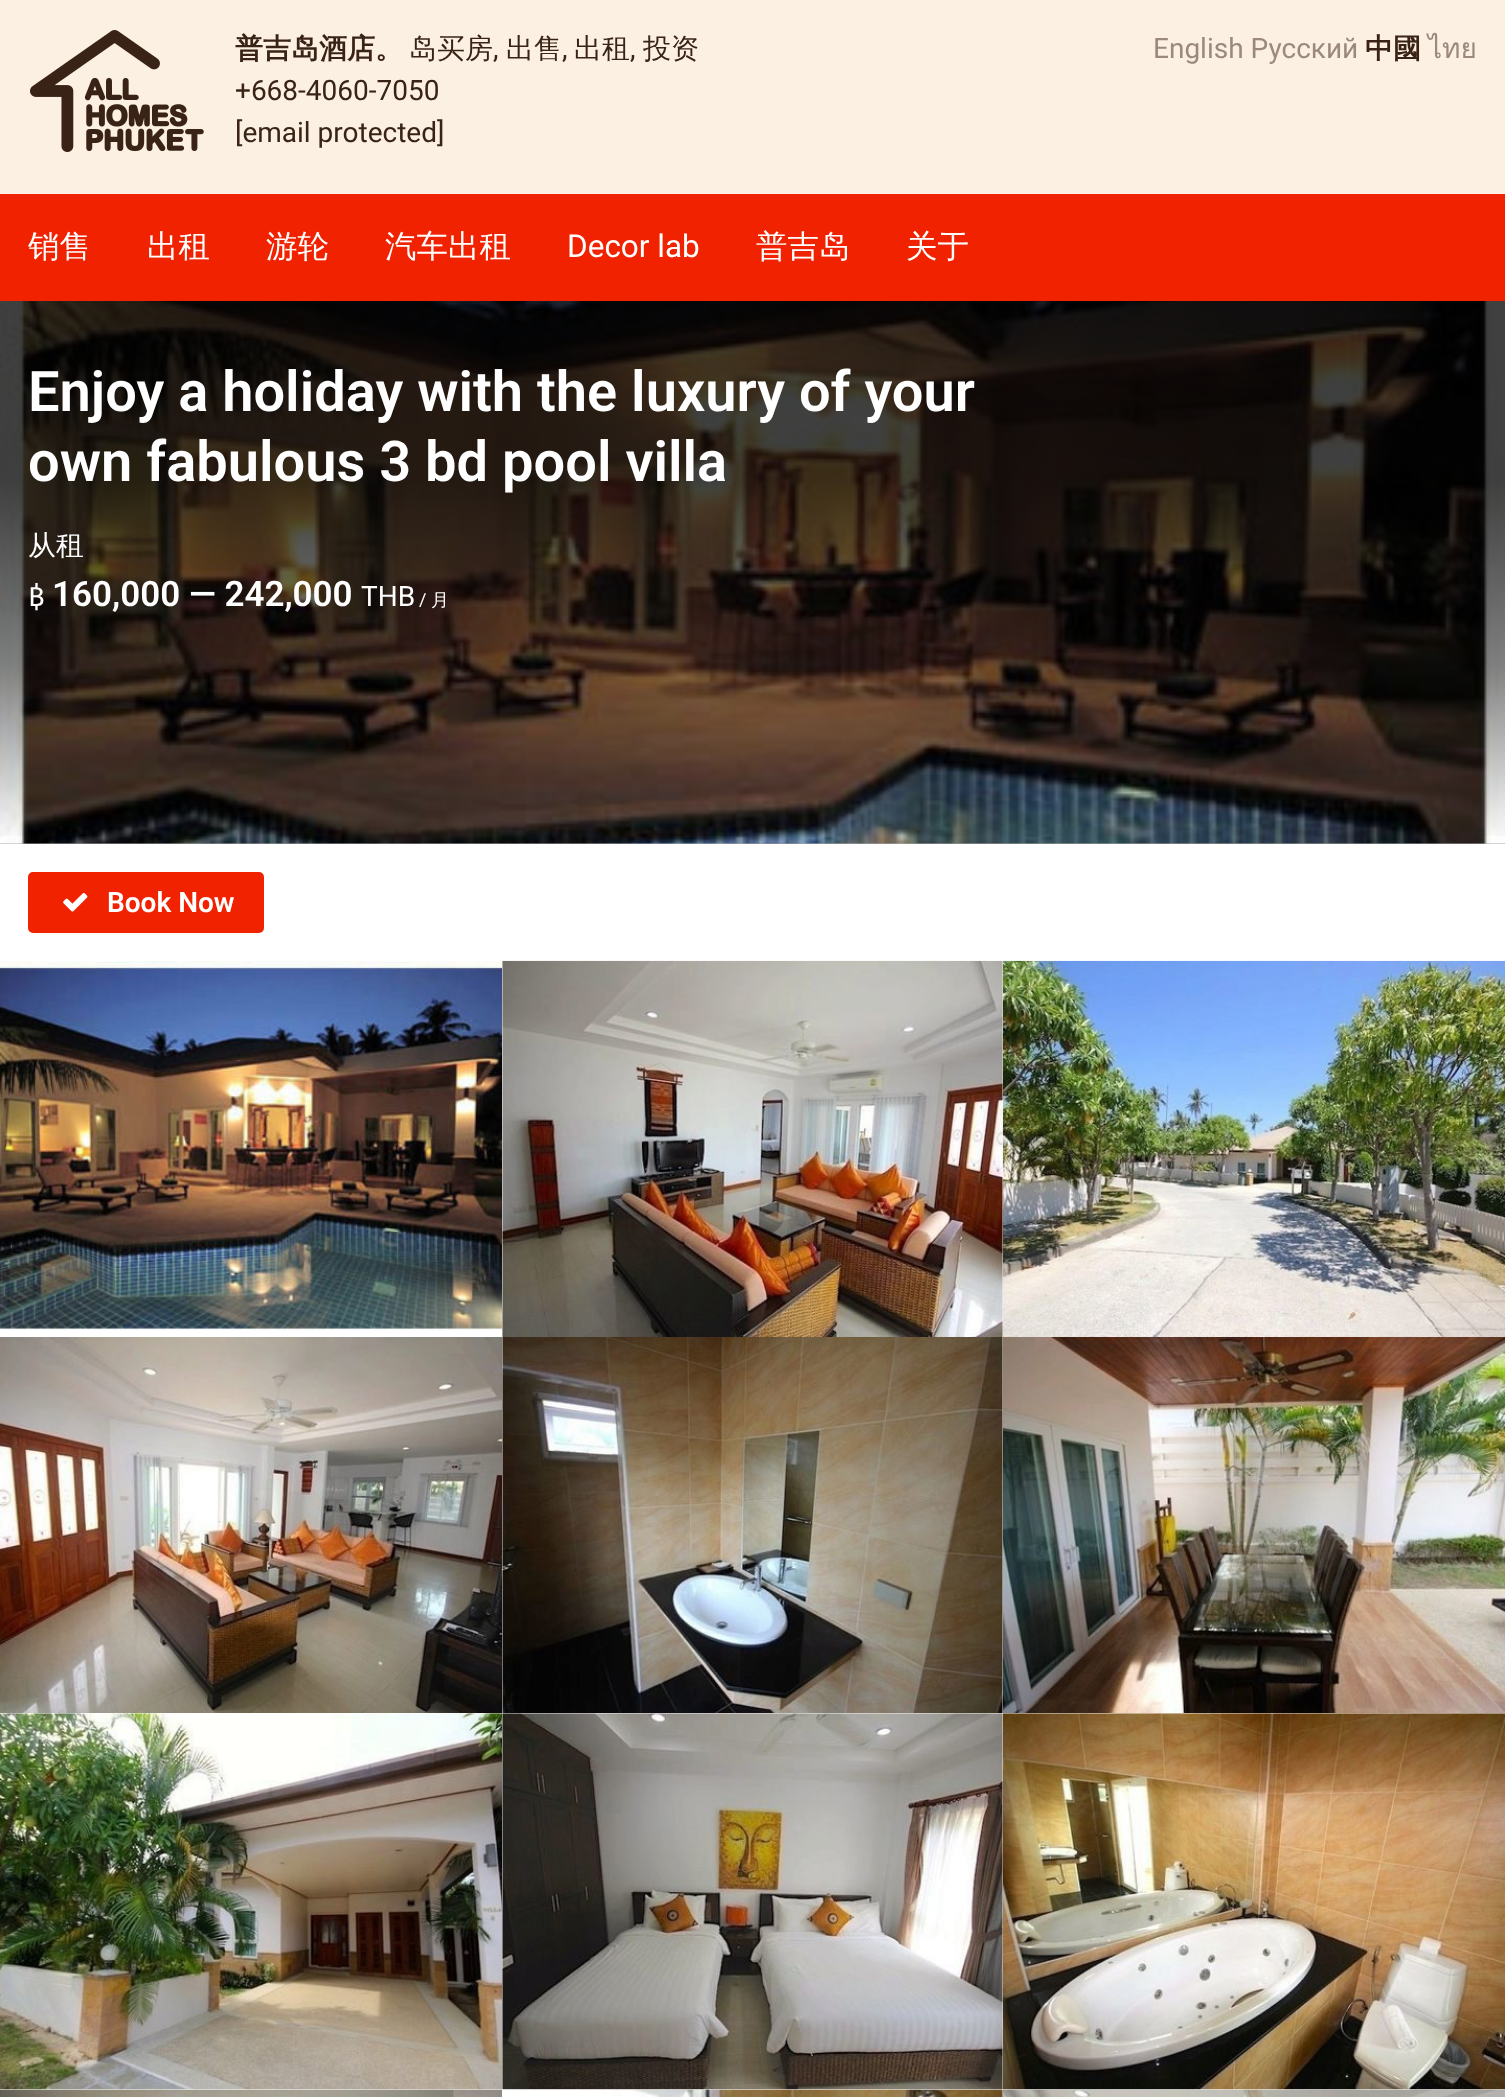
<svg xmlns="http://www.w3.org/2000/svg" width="1505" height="2097">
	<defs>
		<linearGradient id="g1" gradientUnits="userSpaceOnUse" x1="753" y1="301" x2="753" y2="844"><stop offset="0" stop-color="#000000" stop-opacity="0.75" /><stop offset="0.33" stop-color="#000000" stop-opacity="0.75" /><stop offset="0.67" stop-color="#000000" stop-opacity="0.5" /><stop offset="1" stop-color="#000000" stop-opacity="0" /></linearGradient>
	</defs>
	<rect width="100%" height="100%" fill="#FCF0E2" />
	<image x="30" y="30" width="174" height="122" href="assets/img1.png" />
	<text x="235" y="58" font-family="WenQuanYi Zen Hei" font-size="28" font-weight="700" fill="#392316">普吉岛酒店。</text>
	<text x="409" y="58" font-family="WenQuanYi Zen Hei" font-size="28" font-weight="500" fill="#392316">岛买房</text>
	<text x="493" y="58" font-family="Roboto" font-size="28" fill="#392316">,</text>
	<text x="506" y="58" font-family="WenQuanYi Zen Hei" font-size="28" font-weight="500" fill="#392316">出售</text>
	<text x="562" y="58" font-family="Roboto" font-size="28" fill="#392316">,</text>
	<text x="574" y="58" font-family="WenQuanYi Zen Hei" font-size="28" font-weight="500" fill="#392316">出租</text>
	<text x="630" y="58" font-family="Roboto" font-size="28" fill="#392316">,</text>
	<text x="643" y="58" font-family="WenQuanYi Zen Hei" font-size="28" font-weight="500" fill="#392316">投资</text>
	<g font-family="Roboto" font-size="28" fill="#392316">
		<text x="235" y="100">+668-4060-7050</text>
		<text x="235" y="142">[email protected]</text>
	</g>
	<text x="1153" y="58" font-family="Roboto" font-size="28" fill="#9B8A7C">English Русский</text>
	<text x="1365" y="58" font-family="WenQuanYi Zen Hei" font-size="28" font-weight="700" fill="#392316">中國</text>
	<text x="1428" y="58" font-family="Loma" font-size="28" fill="#9B8A7C">ไทย</text>
	<rect x="0" y="194" width="1505" height="107" fill="#F02200" />
	<g font-family="WenQuanYi Zen Hei" font-size="31.5" font-weight="500" fill="#FFFFFF">
		<text x="28" y="257">销售</text>
		<text x="147" y="257">出租</text>
		<text x="266" y="257">游轮</text>
		<text x="385" y="257">汽车出租</text>
	</g>
	<text x="567" y="257" font-family="Roboto" font-size="31.5" fill="#FFFFFF">Decor lab</text>
	<g font-family="WenQuanYi Zen Hei" font-size="31.5" font-weight="500" fill="#FFFFFF">
		<text x="756" y="257">普吉岛</text>
		<text x="906" y="257">关于</text>
	</g>
	<rect x="0" y="843" width="1505" height="1" fill="#AAAAAA" />
	<image x="0" y="301" width="1505" height="543" href="assets/img2.png" />
	<rect x="0" y="301" width="1505" height="535" fill="url(#g1)" />
	<g font-family="Roboto" font-size="56" font-weight="600" fill="#FFFFFF">
		<text x="28" y="411">Enjoy a holiday with the luxury of your</text>
		<text x="28" y="481">own fabulous 3 bd pool villa</text>
	</g>
	<text x="28" y="555" font-family="WenQuanYi Zen Hei" font-size="28" font-weight="500" fill="#FFFFFF">从租</text>
	<text x="28" y="606" font-family="Fira Sans" font-size="28" fill="#FFFFFF">฿</text>
	<text x="52" y="606" font-family="Roboto" font-size="35" font-weight="600" fill="#FFFFFF">160,000 — 242,000</text>
	<text x="361" y="606" font-family="Roboto" font-size="28" fill="#FFFFFF">THB</text>
	<text x="419" y="606" font-family="Roboto" font-size="18" fill="#FFFFFF">/</text>
	<text x="431" y="606" font-family="WenQuanYi Zen Hei" font-size="18" font-weight="500" fill="#FFFFFF">月</text>
	<rect x="0" y="844" width="1505" height="117" fill="#FFFFFF" />
	<rect x="28" y="872" width="236" height="61" rx="5" fill="#F02200" />
	<image x="63" y="893" width="25" height="19" href="assets/img3.png" />
	<text x="107" y="912" font-family="Roboto" font-size="28" font-weight="600" fill="#FFFFFF">Book Now</text>
	<rect x="0" y="1330" width="502" height="7" fill="#FFFFFF" />
	<image x="0" y="961" width="502" height="369" href="assets/img4.png" />
	<rect x="502" y="961" width="501" height="752" fill="#FFFFFF" />
	<image x="502" y="960" width="501" height="377" href="assets/img5.png" />
	<image x="1002" y="960" width="503" height="377" href="assets/img6.png" />
	<image x="0" y="1337" width="502" height="376" href="assets/img7.png" />
	<image x="502" y="1337" width="501" height="376" href="assets/img8.png" />
	<image x="1002" y="1337" width="503" height="376" href="assets/img9.png" />
	<rect x="0" y="1713" width="1505" height="377" fill="#FFFFFF" />
	<image x="0" y="1713" width="502" height="377" href="assets/img10.png" />
	<image x="502" y="1713" width="501" height="377" href="assets/img11.png" />
	<image x="1002" y="1713" width="503" height="377" href="assets/img12.png" />
	<image x="0" y="2089" width="502" height="8" href="assets/img13.png" />
	<rect x="502" y="2090" width="501" height="7" fill="#FFFFFF" />
	<image x="502" y="2089" width="501" height="8" href="assets/img14.png" />
	<image x="1003" y="2089" width="502" height="8" href="assets/img15.png" />
</svg>
